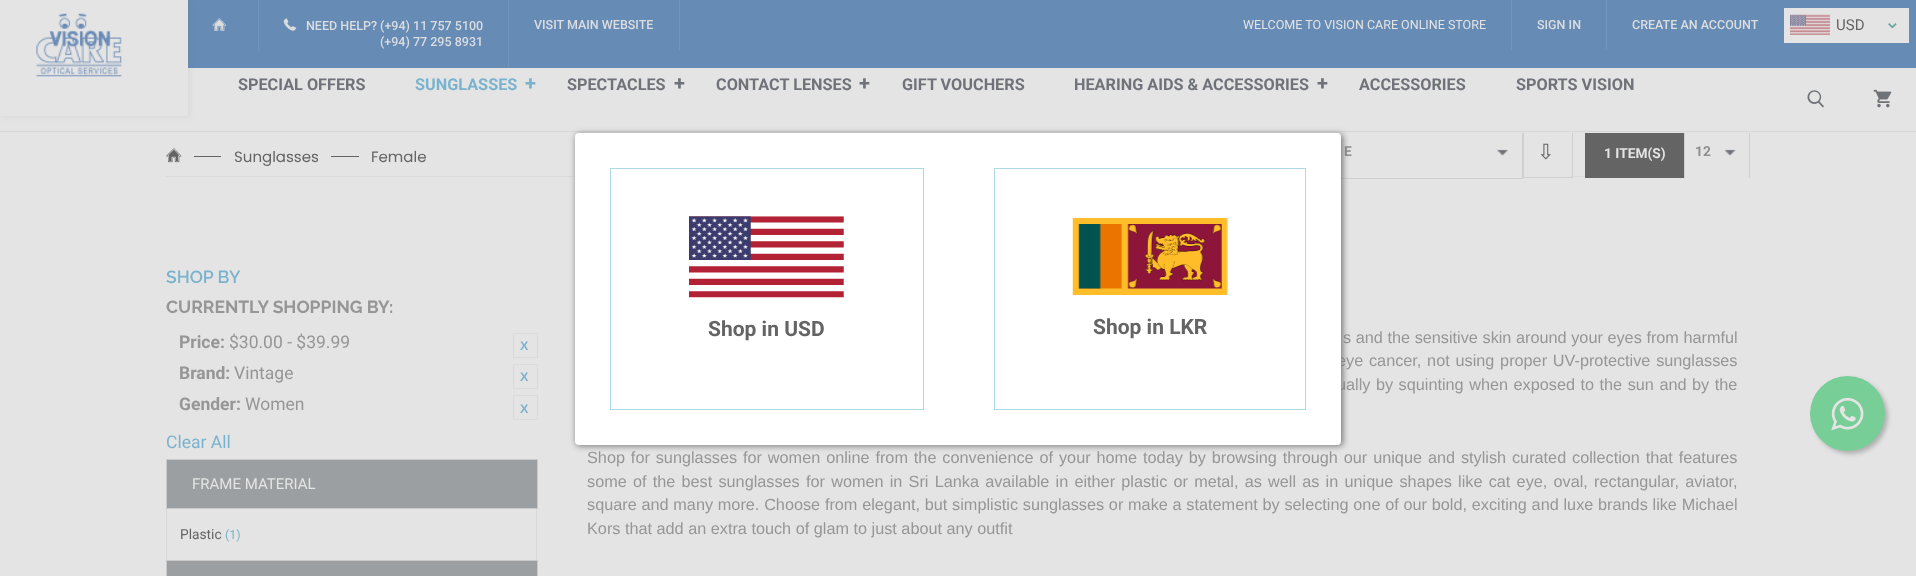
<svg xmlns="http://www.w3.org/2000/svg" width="1916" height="576">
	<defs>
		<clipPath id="clip1"><rect x="1585" y="128" width="165" height="50" /></clipPath>
	</defs>
	<rect width="100%" height="100%" fill="#E4E4E4" />
	<rect x="166" y="176" width="1419" height="1" fill="#DADADA" />
	<rect x="1337" y="176" width="185" height="1" fill="#E4E4E4" />
	<image x="1497" y="149" width="11" height="7" href="assets/img8.png" />
	<rect x="1303.5" y="128.5" width="219" height="50" fill="none" stroke="#D0D0D0" />
	<rect x="1524" y="176" width="48" height="1" fill="#E4E4E4" />
	<rect x="1523.5" y="128.5" width="49" height="49" fill="none" stroke="#D0D0D0" />
	<image x="1724" y="149" width="12" height="7" href="assets/img9.png" />
	<g clip-path="url(#clip1)">
		<rect x="1684.5" y="128.5" width="65" height="50" fill="none" stroke="#D0D0D0" />
	</g>
	<rect x="1303" y="128" width="447" height="5" fill="#E4E4E4" />
	<rect x="0" y="131" width="1916" height="1" fill="#D7D7D7" />
	<rect x="188" y="0" width="1728" height="68" fill="#668BB5" />
	<rect x="1" y="0" width="188" height="116" fill="#646464" fill-opacity="0.11" filter="blur(3px)" />
	<rect x="0" y="0" width="188" height="116" fill="#E4E4E4" />
	<image x="36" y="13" width="86" height="64" href="assets/img1.png" />
	<image x="1807" y="90" width="17" height="18" href="assets/img2.png" />
	<image x="1873" y="89" width="19" height="19" href="assets/img3.png" />
	<rect x="258" y="0" width="1" height="51" fill="#7294BA" />
	<image x="212" y="18" width="15" height="13" href="assets/img4.png" />
	<rect x="508" y="0" width="1" height="68" fill="#7294BA" />
	<image x="283" y="18" width="14" height="13" href="assets/img5.png" />
	<g font-family="Roboto" font-size="12.5" font-weight="500" fill="#DBDDDF">
		<text x="306" y="30">NEED HELP? (+94) 11 757 5100</text>
		<text x="380" y="46">(+94) 77 295 8931</text>
	</g>
	<rect x="679" y="0" width="1" height="50" fill="#7294BA" />
	<text x="534" y="29" font-family="Roboto" font-size="12.5" font-weight="500" fill="#DBDDDF">VISIT MAIN WEBSITE</text>
	<text x="1243" y="29" font-family="Roboto" font-size="12.5" fill="#E4E4E4">WELCOME TO VISION CARE ONLINE STORE</text>
	<rect x="1511" y="0" width="1" height="50" fill="#7294BA" />
	<text x="1537" y="29" font-family="Roboto" font-size="12.5" font-weight="500" fill="#DBDDDF">SIGN IN</text>
	<rect x="1606" y="0" width="1" height="50" fill="#7294BA" />
	<text x="1632" y="29" font-family="Roboto" font-size="12.5" font-weight="500" fill="#DBDDDF">CREATE AN ACCOUNT</text>
	<rect x="1784" y="8" width="125" height="35" fill="#E4E4E4" />
	<image x="1790" y="14" width="40" height="21" href="assets/img6.png" />
	<text x="1836" y="30" font-family="Roboto" font-size="15" fill="#646464">USD</text>
	<text x="1884" y="28" font-family="DejaVu Sans" font-size="20" fill="#64A4A4">⌄</text>
	<text x="238" y="90" font-family="Roboto" font-size="16.25" font-weight="700" fill="#6F7379">SPECIAL OFFERS</text>
	<text x="415" y="90" font-family="Roboto" font-size="16.25" font-weight="700" fill="#7AB3CF">SUNGLASSES</text>
	<text x="525" y="90" font-family="Roboto" font-size="20" font-weight="700" fill="#7AB3CF">+</text>
	<text x="567" y="90" font-family="Roboto" font-size="16.25" font-weight="700" fill="#6F7379">SPECTACLES</text>
	<text x="674" y="90" font-family="Roboto" font-size="20" font-weight="700" fill="#6F7379">+</text>
	<text x="716" y="90" font-family="Roboto" font-size="16.25" font-weight="700" fill="#6F7379">CONTACT LENSES</text>
	<text x="859" y="90" font-family="Roboto" font-size="20" font-weight="700" fill="#6F7379">+</text>
	<g font-family="Roboto" font-size="16.25" font-weight="700" fill="#6F7379">
		<text x="902" y="90">GIFT VOUCHERS</text>
		<text x="1074" y="90">HEARING AIDS &amp; ACCESSORIES</text>
	</g>
	<text x="1317" y="90" font-family="Roboto" font-size="20" font-weight="700" fill="#6F7379">+</text>
	<g font-family="Roboto" font-size="16.25" font-weight="700" fill="#6F7379">
		<text x="1359" y="90">ACCESSORIES</text>
		<text x="1516" y="90">SPORTS VISION</text>
	</g>
	<image x="166" y="148" width="16" height="15" href="assets/img7.png" />
	<rect x="194" y="156" width="27" height="1" fill="#646464" />
	<text x="234" y="162" font-family="Poppins" font-size="15" fill="#646464">Sunglasses</text>
	<rect x="331" y="156" width="28" height="1" fill="#646464" />
	<text x="371" y="162" font-family="Poppins" font-size="15" fill="#646464">Female</text>
	<text x="1344" y="156" font-family="Roboto" font-size="13.75" font-weight="700" fill="#8E8E8E">E</text>
	<text x="1537" y="159" font-family="DejaVu Sans" font-size="21" fill="#646464">⇩</text>
	<rect x="1585" y="133" width="99" height="45" fill="#646464" />
	<text x="1604" y="158" font-family="Roboto" font-size="13.75" font-weight="700" fill="#E4E4E4">1 ITEM(S)</text>
	<text x="1695" y="156" font-family="Roboto" font-size="13.75" font-weight="700" fill="#8E8E8E">12</text>
	<text x="166" y="283" font-family="Raleway" font-size="17.5" font-weight="600" fill="#7AB3CF">SHOP BY</text>
	<text x="166" y="313" font-family="Raleway" font-size="17.5" font-weight="700" fill="#969696">CURRENTLY SHOPPING BY:</text>
	<text x="179" y="348" font-family="Roboto" font-size="17.5" font-weight="700" fill="#969696">Price:</text>
	<text x="229" y="348" font-family="Roboto" font-size="17.5" fill="#969696">$30.00 - $39.99</text>
	<rect x="513.5" y="333.5" width="24" height="24" fill="none" stroke="#DBDBDB" />
	<text x="520" y="350" font-family="Liberation Sans" font-size="12.5" font-weight="700" fill="#7AB3CF">X</text>
	<text x="179" y="379" font-family="Roboto" font-size="17.5" font-weight="700" fill="#969696">Brand:</text>
	<text x="234" y="379" font-family="Roboto" font-size="17.5" fill="#969696">Vintage</text>
	<rect x="513.5" y="364.5" width="24" height="24" fill="none" stroke="#DBDBDB" />
	<text x="520" y="381" font-family="Liberation Sans" font-size="12.5" font-weight="700" fill="#7AB3CF">X</text>
	<text x="179" y="410" font-family="Roboto" font-size="17.5" font-weight="700" fill="#969696">Gender:</text>
	<text x="245" y="410" font-family="Roboto" font-size="17.5" fill="#969696">Women</text>
	<rect x="513.5" y="395.5" width="24" height="24" fill="none" stroke="#DBDBDB" />
	<text x="520" y="413" font-family="Liberation Sans" font-size="12.5" font-weight="700" fill="#7AB3CF">X</text>
	<text x="166" y="448" font-family="Roboto" font-size="17.5" fill="#7AB3CF">Clear All</text>
	<rect x="166.5" y="459.5" width="371" height="49" fill="#9B9FA1" stroke="#CACACA" />
	<text x="192" y="489" font-family="Roboto" font-size="15" fill="#E4E4E4">FRAME MATERIAL</text>
	<rect x="536" y="509" width="1" height="51" fill="#D8D8D8" />
	<rect x="166" y="509" width="1" height="51" fill="#D8D8D8" />
	<text x="180" y="539" font-family="Roboto" font-size="13.75" fill="#646464">Plastic</text>
	<text x="225" y="539" font-family="Roboto" font-size="12.5" fill="#7AB3CF">(1)</text>
	<rect x="166.5" y="560.5" width="371" height="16" fill="#9B9FA1" stroke="#CACACA" />
	<g font-family="Liberation Sans" font-size="16.25" fill="#969696">
		<text x="1343" y="343" word-spacing="0.1">s and the sensitive skin around your eyes from harmful</text>
		<text x="1337" y="366" word-spacing="1.25">eye cancer, not using proper UV-protective sunglasses</text>
		<text x="1337" y="390" word-spacing="1">ually by squinting when exposed to the sun and by the</text>
		<text x="587" y="463" word-spacing="1.4">Shop for sunglasses for women online from the convenience of your home today by browsing through our unique and stylish curated collection that features</text>
		<text x="587" y="487" word-spacing="1.7">some of the best sunglasses for women in Sri Lanka available in either plastic or metal, as well as in unique shapes like cat eye, oval, rectangular, aviator,</text>
		<text x="587" y="510" word-spacing="0.25">square and many more. Choose from elegant, but simplistic sunglasses or make a statement by selecting one of our bold, exciting and luxe brands like Michael</text>
		<text x="587" y="534">Kors that add an extra touch of glam to just about any outfit</text>
	</g>
	<rect x="576" y="134" width="767" height="312" rx="4" fill="#777777" filter="blur(3px)" />
	<rect x="575" y="133" width="766" height="312" rx="4" fill="#FFFFFF" />
	<rect x="610.5" y="168.5" width="313" height="241" fill="none" stroke="#ADD8E6" />
	<image x="689" y="216" width="155" height="82" href="assets/img10.png" />
	<text x="708" y="336" font-family="Roboto" font-size="21" font-weight="700" fill="#646464">Shop in USD</text>
	<rect x="994.5" y="168.5" width="311" height="241" fill="none" stroke="#ADD8E6" />
	<image x="1072" y="218" width="156" height="77" href="assets/img11.png" />
	<text x="1093" y="334" font-family="Roboto" font-size="21" font-weight="700" fill="#646464">Shop in LKR</text>
	<rect x="1813" y="379" width="75" height="75" rx="37.5" fill="#B1B1B1" filter="blur(2px)" />
	<circle cx="1847.5" cy="413.5" r="37.5" fill="#77CE97" />
	<image x="1831" y="397" width="33" height="34" href="assets/img12.png" />
</svg>
